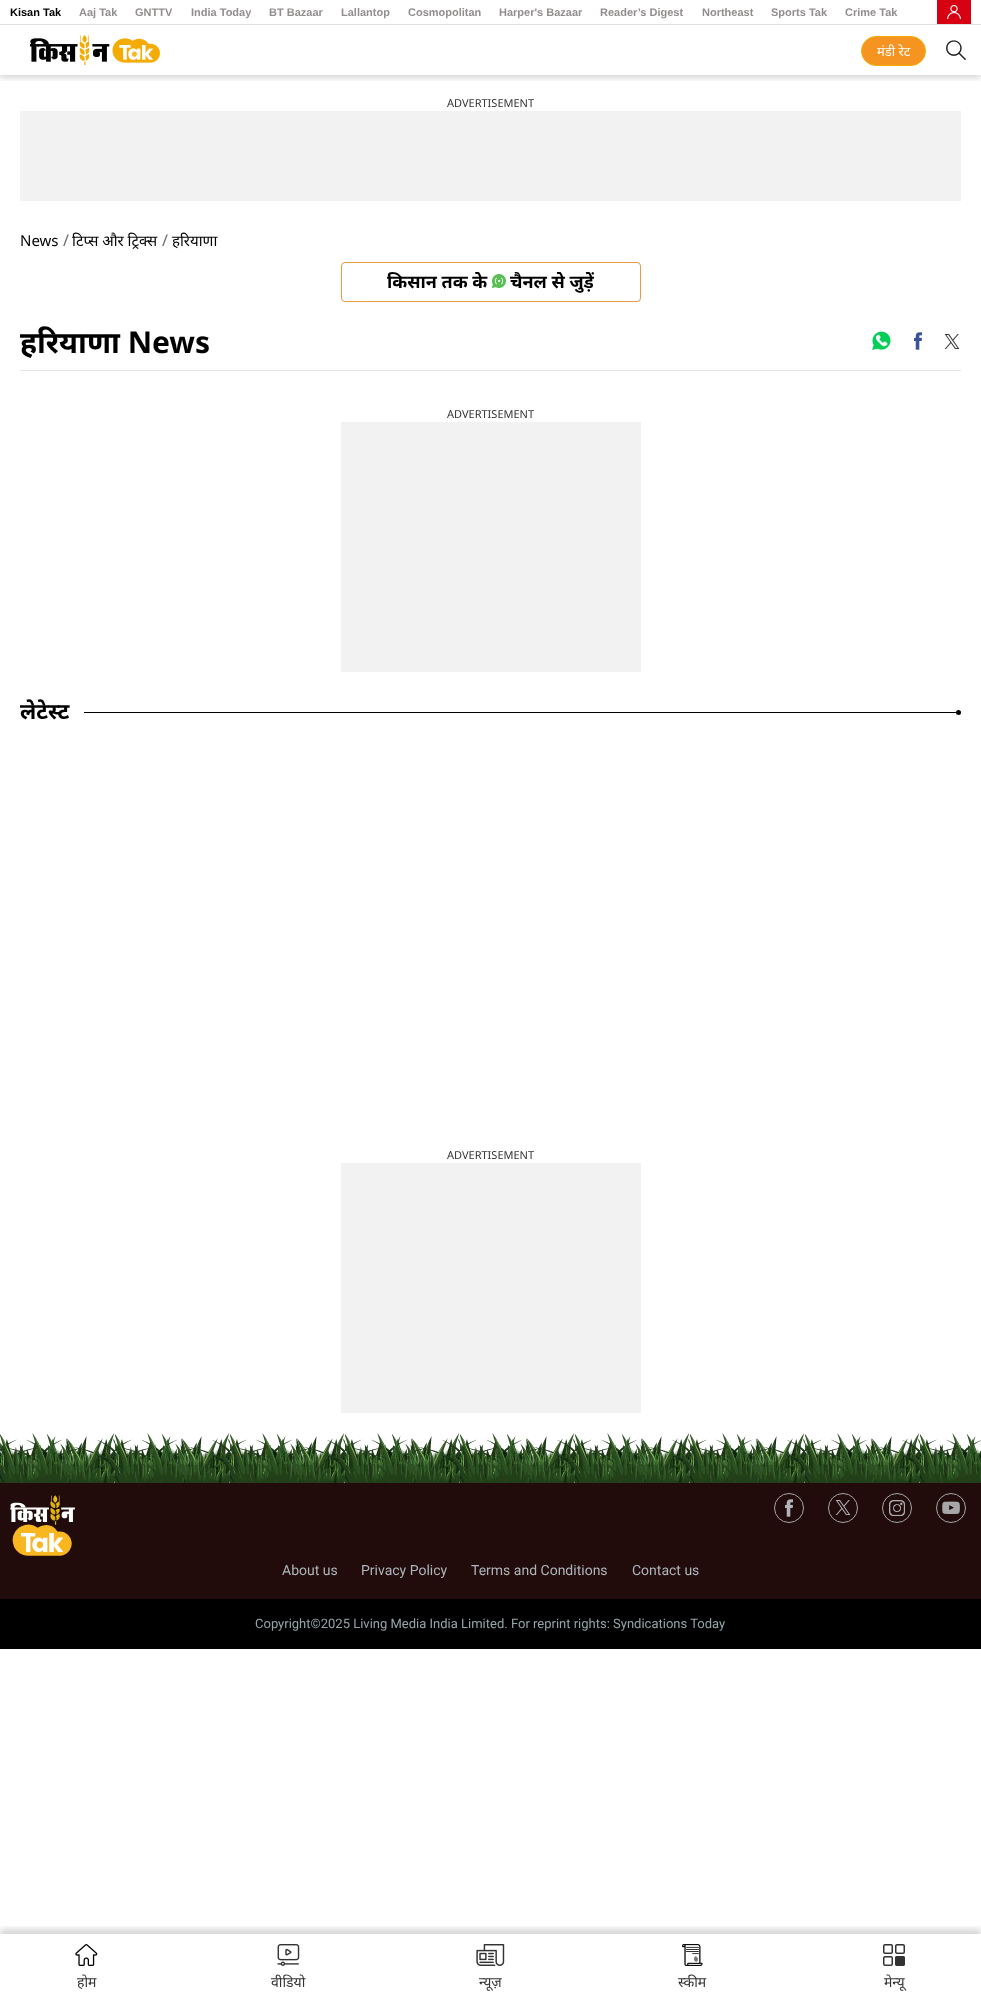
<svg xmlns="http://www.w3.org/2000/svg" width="981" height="2003">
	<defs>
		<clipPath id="clip1"><rect x="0" y="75" width="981" height="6" /></clipPath>
		<clipPath id="clip2"><rect x="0" y="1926" width="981" height="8" /></clipPath>
	</defs>
	<rect width="100%" height="100%" fill="#FFFFFF" />
	<rect x="0" y="24" width="981" height="1" fill="#DFDFDF" />
	<text x="10" y="16" font-family="Liberation Sans" font-size="11" font-weight="700" fill="#000000">Kisan Tak</text>
	<g font-family="Liberation Sans" font-size="11" font-weight="700" fill="#938E8E">
		<text x="79" y="16">Aaj Tak</text>
		<text x="135" y="16">GNTTV</text>
		<text x="191" y="16">India Today</text>
		<text x="269" y="16">BT Bazaar</text>
		<text x="341" y="16">Lallantop</text>
		<text x="408" y="16">Cosmopolitan</text>
		<text x="499" y="16">Harper's Bazaar</text>
		<text x="600" y="16">Reader’s Digest</text>
		<text x="702" y="16">Northeast</text>
		<text x="771" y="16">Sports Tak</text>
		<text x="845" y="16">Crime Tak</text>
	</g>
	<rect x="937" y="0" width="34" height="24" fill="#D70012" />
	<image x="947" y="5" width="14" height="14" href="assets/img1.png" />
	<g clip-path="url(#clip1)">
		<rect x="0" y="28" width="981" height="50" fill="#000000" fill-opacity="0.16" filter="blur(3px)" />
	</g>
	<image x="30" y="35" width="130" height="30" href="assets/img2.png" />
	<rect x="861.5" y="36.5" width="64" height="29" rx="14.5" fill="#F69422" stroke="#F4AC05" />
	<text x="877" y="56" font-family="Noto Sans" font-size="13" fill="#FFFFFF">मंडी रेट</text>
	<image x="946" y="40" width="20" height="20" href="assets/img3.png" />
	<text x="447" y="107" font-family="Noto Sans" font-size="11" fill="#323232">ADVERTISEMENT</text>
	<rect x="20" y="111" width="941" height="90" fill="#F2F2F2" />
	<text x="20" y="246" font-family="Noto Sans" font-size="15" fill="#000000">News</text>
	<text x="63" y="246" font-family="Noto Sans" font-size="16" fill="#6D6C6C">/</text>
	<text x="72" y="246" font-family="Noto Sans" font-size="15" fill="#000000">टिप्स और ट्रिक्स</text>
	<text x="162" y="246" font-family="Noto Sans" font-size="16" fill="#6D6C6C">/</text>
	<text x="172" y="246" font-family="Noto Sans" font-size="15" fill="#000000">हर‍ियाणा</text>
	<rect x="341.5" y="262.5" width="299" height="39" rx="3.5" fill="none" stroke="#E89941" />
	<g font-family="Noto Sans" font-size="18" font-weight="700" fill="#000000">
		<text x="387" y="288">किसान तक के</text>
		<text x="510" y="288">चैनल से जुड़ें</text>
	</g>
	<image x="492" y="274" width="14" height="14" href="assets/img4.png" />
	<rect x="20" y="370" width="941" height="1" fill="#E5E5E5" />
	<text x="20" y="353" font-family="Noto Sans" font-size="30" font-weight="700" fill="#000000">हर‍ियाणा News</text>
	<image x="872" y="331" width="19" height="19" href="assets/img5.png" />
	<image x="914" y="332" width="8" height="18" href="assets/img6.png" />
	<image x="944" y="334" width="16" height="15" href="assets/img7.png" />
	<text x="447" y="418" font-family="Noto Sans" font-size="11" fill="#323232">ADVERTISEMENT</text>
	<rect x="341" y="422" width="300" height="250" fill="#F2F2F2" />
	<rect x="84" y="712" width="877" height="1" fill="#000000" />
	<text x="20" y="719" font-family="Noto Sans" font-size="22" font-weight="700" fill="#000000">लेटेस्ट</text>
	<circle cx="958.5" cy="712.5" r="2.5" fill="#000000" />
	<text x="447" y="1159" font-family="Noto Sans" font-size="11" fill="#323232">ADVERTISEMENT</text>
	<rect x="341" y="1163" width="300" height="250" fill="#F2F2F2" />
	<image x="0" y="1433" width="981" height="50" href="assets/img8.png" />
	<rect x="0" y="1483" width="981" height="116" fill="#210B0B" />
	<image x="10" y="1495" width="65" height="61" href="assets/img9.png" />
	<circle cx="789" cy="1508" r="14.5" fill="none" stroke="#A7A7A7" />
	<image x="785" y="1499" width="8" height="18" href="assets/img10.png" />
	<circle cx="843" cy="1508" r="14.5" fill="none" stroke="#A7A7A7" />
	<image x="835" y="1500" width="16" height="15" href="assets/img11.png" />
	<circle cx="897" cy="1508" r="14.5" fill="none" stroke="#A7A7A7" />
	<image x="889" y="1500" width="16" height="16" href="assets/img12.png" />
	<circle cx="951" cy="1508" r="14.5" fill="none" stroke="#A7A7A7" />
	<image x="942" y="1501" width="18" height="13" href="assets/img13.png" />
	<g font-family="Roboto" font-size="14" fill="#AEB5BB">
		<text x="282" y="1575">About us</text>
		<text x="361" y="1575">Privacy Policy</text>
		<text x="471" y="1575">Terms and Conditions</text>
		<text x="632" y="1575">Contact us</text>
	</g>
	<rect x="0" y="1599" width="981" height="50" fill="#000000" />
	<text x="255" y="1628" font-family="Roboto" font-size="13" fill="#93A6AA">Copyright©2025 Living Media India Limited. For reprint rights: Syndications Today</text>
	<g clip-path="url(#clip2)">
		<rect x="0" y="1929" width="981" height="70" fill="#000000" fill-opacity="0.16" filter="blur(3px)" />
	</g>
	<image x="75" y="1944" width="23" height="22" href="assets/img14.png" />
	<text x="77" y="1987" font-family="Noto Sans" font-size="14" fill="#323232">होम</text>
	<image x="277" y="1944" width="23" height="22" href="assets/img15.png" />
	<text x="271" y="1987" font-family="Noto Sans" font-size="14" fill="#323232">वीडियो</text>
	<image x="476" y="1944" width="29" height="22" href="assets/img16.png" />
	<text x="479" y="1987" font-family="Noto Sans" font-size="14" fill="#323232">न्यूज़</text>
	<image x="682" y="1944" width="21" height="22" href="assets/img17.png" />
	<text x="678" y="1987" font-family="Noto Sans" font-size="14" fill="#323232">स्कीम</text>
	<image x="883" y="1944" width="22" height="22" href="assets/img18.png" />
	<text x="884" y="1987" font-family="Noto Sans" font-size="14" fill="#323232">मेन्यू</text>
</svg>
